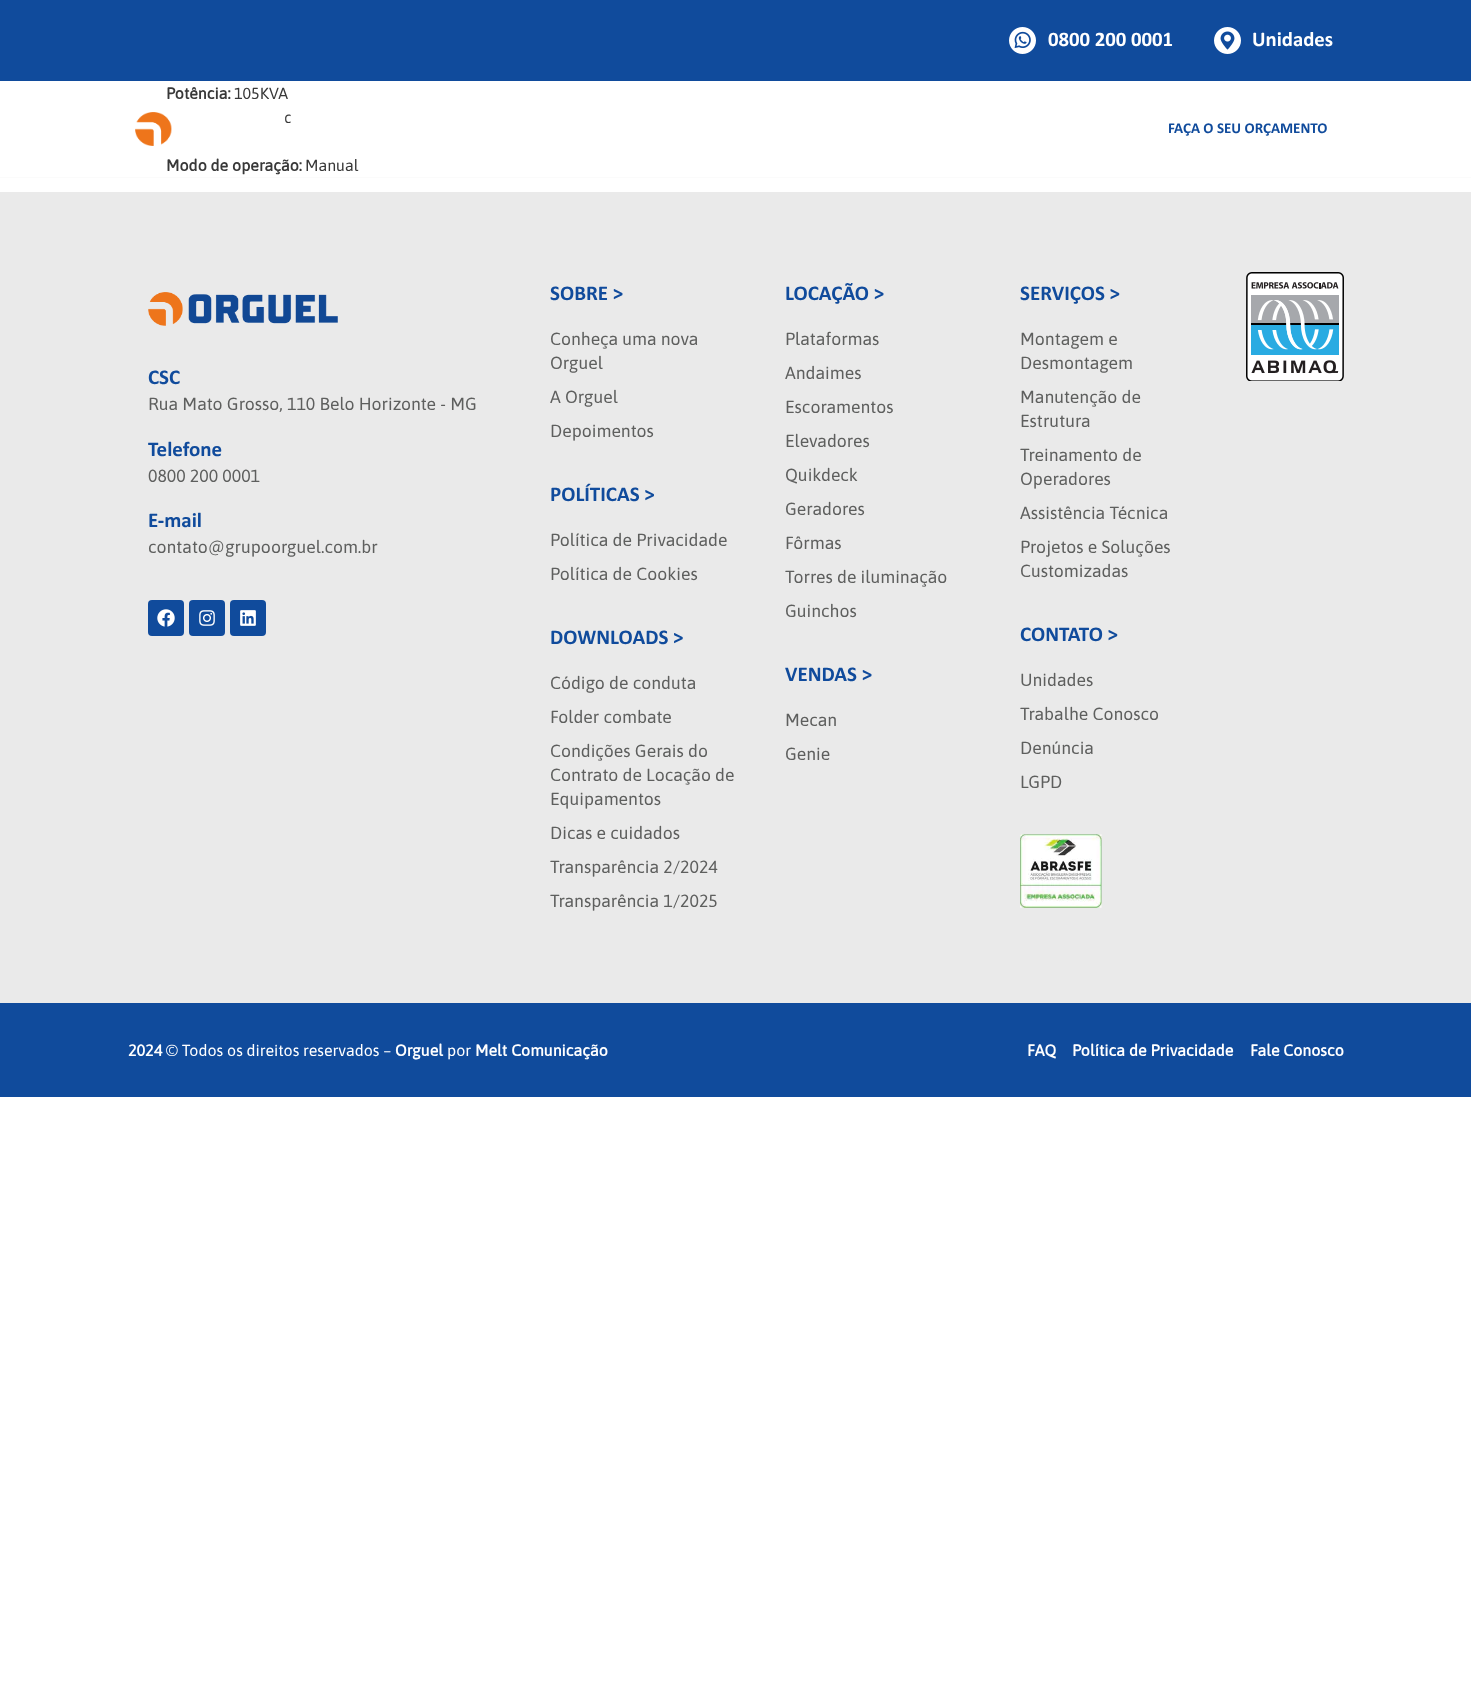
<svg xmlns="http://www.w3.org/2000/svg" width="1471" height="1685">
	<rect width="100%" height="100%" fill="#FFFFFF" />
	<text x="166" y="99" font-family="Asap" font-size="16" font-weight="700" fill="#383838">Potência:</text>
	<g font-family="Asap" font-size="16" fill="#383838">
		<text x="234" y="99">105KVA</text>
		<text x="284" y="123">c</text>
	</g>
	<text x="166" y="171" font-family="Asap" font-size="16" font-weight="700" fill="#383838">Modo de operação:</text>
	<text x="305" y="171" font-family="Asap" font-size="16" fill="#383838">Manual</text>
	<rect x="0" y="0" width="1471" height="81" fill="#104B9C" />
	<image x="1009" y="27" width="27" height="27" href="assets/img1.png" />
	<text x="1048" y="46" font-family="Calibri" font-size="20.75" font-weight="700" fill="#FFFFFF">0800 200 0001</text>
	<image x="1214" y="27" width="27" height="27" href="assets/img2.png" />
	<text x="1252" y="46" font-family="Calibri" font-size="20.75" font-weight="700" fill="#FFFFFF">Unidades</text>
	<rect x="0" y="177" width="1471" height="1" fill="#FBFBFB" />
	<image x="135" y="112" width="166" height="34" href="assets/img3.png" />
	<text x="1168" y="133" font-family="Calibri" font-size="15" font-weight="700" fill="#104B9C">FAÇA O SEU ORÇAMENTO</text>
	<rect x="0" y="192" width="1471" height="811" fill="#EAEAEA" />
	<image x="148" y="292" width="190" height="34" href="assets/img4.png" />
	<text x="148" y="384" font-family="Calibri" font-size="21" font-weight="700" fill="#104B9C">CSC</text>
	<text x="148" y="410" font-family="Asap" font-size="17.6" fill="#5E5F5E">Rua Mato Grosso, 110 Belo Horizonte - MG</text>
	<text x="148" y="456" font-family="Calibri" font-size="21" font-weight="700" fill="#104B9C">Telefone</text>
	<text x="148" y="482" font-family="Asap" font-size="17.6" fill="#5E5F5E">0800 200 0001</text>
	<text x="148" y="527" font-family="Calibri" font-size="21" font-weight="700" fill="#104B9C">E-mail</text>
	<text x="148" y="553" font-family="Asap" font-size="17.6" fill="#5E5F5E">contato@grupoorguel.com.br</text>
	<rect x="148" y="600" width="36" height="36" rx="4" fill="#104B9C" />
	<image x="157" y="609" width="18" height="18" href="assets/img5.png" />
	<rect x="189" y="600" width="36" height="36" rx="4" fill="#104B9C" />
	<image x="199" y="610" width="16" height="16" href="assets/img6.png" />
	<rect x="230" y="600" width="36" height="36" rx="4" fill="#104B9C" />
	<image x="240" y="610" width="16" height="16" href="assets/img7.png" />
	<text x="550" y="300" font-family="Calibri" font-size="21" font-weight="700" fill="#104B9C">SOBRE &gt;</text>
	<g font-family="Asap" font-size="17.6" fill="#5E5F5E">
		<text x="550" y="345">Conheça uma nova</text>
		<text x="550" y="369">Orguel</text>
		<text x="550" y="403">A Orguel</text>
		<text x="550" y="437">Depoimentos</text>
	</g>
	<text x="550" y="501" font-family="Calibri" font-size="21" font-weight="700" fill="#104B9C">POLÍTICAS &gt;</text>
	<g font-family="Asap" font-size="17.6" fill="#5E5F5E">
		<text x="550" y="546">Política de Privacidade</text>
		<text x="550" y="580">Política de Cookies</text>
	</g>
	<text x="550" y="644" font-family="Calibri" font-size="21" font-weight="700" fill="#104B9C">DOWNLOADS &gt;</text>
	<g font-family="Asap" font-size="17.6" fill="#5E5F5E">
		<text x="550" y="689">Código de conduta</text>
		<text x="550" y="723">Folder combate</text>
		<text x="550" y="757">Condições Gerais do</text>
		<text x="550" y="781">Contrato de Locação de</text>
		<text x="550" y="805">Equipamentos</text>
		<text x="550" y="839">Dicas e cuidados</text>
		<text x="550" y="873">Transparência 2/2024</text>
		<text x="550" y="907">Transparência 1/2025</text>
	</g>
	<text x="785" y="300" font-family="Calibri" font-size="21" font-weight="700" fill="#104B9C">LOCAÇÃO &gt;</text>
	<g font-family="Asap" font-size="17.6" fill="#5E5F5E">
		<text x="785" y="345">Plataformas</text>
		<text x="785" y="379">Andaimes</text>
		<text x="785" y="413">Escoramentos</text>
		<text x="785" y="447">Elevadores</text>
		<text x="785" y="481">Quikdeck</text>
		<text x="785" y="515">Geradores</text>
		<text x="785" y="549">Fôrmas</text>
		<text x="785" y="583">Torres de iluminação</text>
		<text x="785" y="617">Guinchos</text>
	</g>
	<text x="785" y="681" font-family="Calibri" font-size="21" font-weight="700" fill="#104B9C">VENDAS &gt;</text>
	<g font-family="Asap" font-size="17.6" fill="#5E5F5E">
		<text x="785" y="726">Mecan</text>
		<text x="785" y="760">Genie</text>
	</g>
	<text x="1020" y="300" font-family="Calibri" font-size="21" font-weight="700" fill="#104B9C">SERVIÇOS &gt;</text>
	<g font-family="Asap" font-size="17.6" fill="#5E5F5E">
		<text x="1020" y="345">Montagem e</text>
		<text x="1020" y="369">Desmontagem</text>
		<text x="1020" y="403">Manutenção de</text>
		<text x="1020" y="427">Estrutura</text>
		<text x="1020" y="461">Treinamento de</text>
		<text x="1020" y="485">Operadores</text>
		<text x="1020" y="519">Assistência Técnica</text>
		<text x="1020" y="553">Projetos e Soluções</text>
		<text x="1020" y="577">Customizadas</text>
	</g>
	<text x="1020" y="641" font-family="Calibri" font-size="21" font-weight="700" fill="#104B9C">CONTATO &gt;</text>
	<g font-family="Asap" font-size="17.6" fill="#5E5F5E">
		<text x="1020" y="686">Unidades</text>
		<text x="1020" y="720">Trabalhe Conosco</text>
		<text x="1020" y="754">Denúncia</text>
		<text x="1020" y="788">LGPD</text>
	</g>
	<image x="1020" y="834" width="82" height="74" href="assets/img8.png" />
	<image x="1246" y="272" width="98" height="109" href="assets/img9.png" />
	<rect x="0" y="1003" width="1471" height="94" fill="#104B9C" />
	<text x="128" y="1056" font-family="Asap" font-size="16" font-weight="700" fill="#FFFFFF">2024</text>
	<text x="166" y="1056" font-family="Asap" font-size="16" fill="#FFFFFF">© Todos os direitos reservados –</text>
	<text x="395" y="1056" font-family="Asap" font-size="16" font-weight="700" fill="#FFFFFF">Orguel</text>
	<text x="447" y="1056" font-family="Asap" font-size="16" fill="#FFFFFF">por</text>
	<g font-family="Asap" font-size="16" font-weight="700" fill="#FFFFFF">
		<text x="475" y="1056">Melt Comunicação</text>
		<text x="1027" y="1056">FAQ</text>
		<text x="1072" y="1056">Política de Privacidade</text>
		<text x="1250" y="1056">Fale Conosco</text>
	</g>
</svg>
